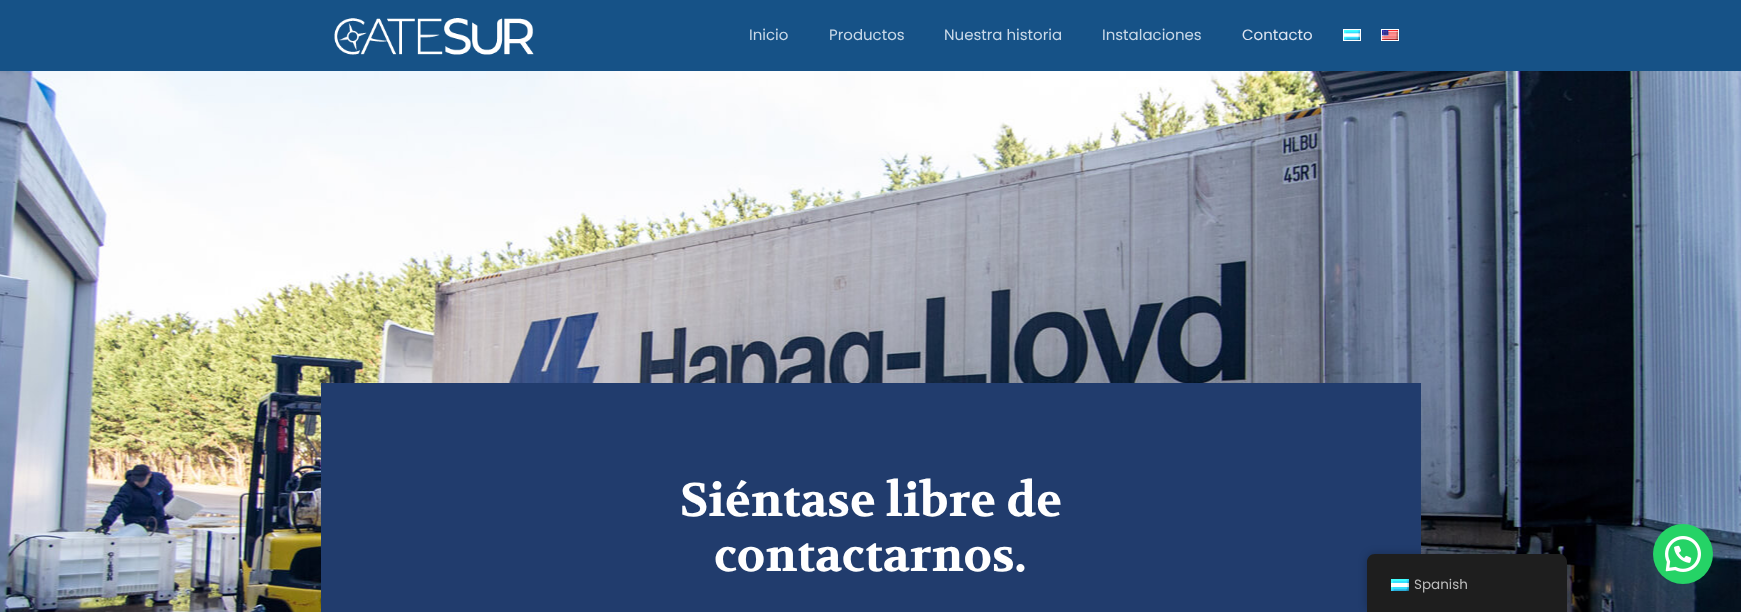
<svg xmlns="http://www.w3.org/2000/svg" width="1741" height="612">
	<rect width="100%" height="100%" fill="#165287" />
	<image x="334" y="18" width="200" height="37" href="assets/img1.png" />
	<g font-family="Poppins" font-size="15" fill="#C9D9E8">
		<text x="749" y="40">Inicio</text>
		<text x="829" y="40">Productos</text>
		<text x="944" y="40">Nuestra historia</text>
		<text x="1102" y="40">Instalaciones</text>
	</g>
	<text x="1242" y="40" font-family="Poppins" font-size="15" fill="#DEE5F1">Contacto</text>
	<rect x="1343.5" y="29.5" width="17" height="11" fill="none" stroke="#FFFFFF" />
	<image x="1344" y="30" width="16" height="10" href="assets/img2.png" />
	<rect x="1381.5" y="29.5" width="17" height="11" fill="none" stroke="#FFFFFF" />
	<image x="1382" y="30" width="16" height="10" href="assets/img3.png" />
	<image x="0" y="71" width="1741" height="541" href="assets/img4.png" />
	<rect x="321" y="383" width="1100" height="229" fill="#213C6D" />
	<g font-family="Volkhov" font-size="47" font-weight="700" fill="#FFFFFF">
		<text x="680" y="516">Siéntase libre de</text>
		<text x="714" y="571">contactarnos.</text>
	</g>
	<rect x="1367" y="554" width="200" height="58" rx="8" fill="#000000" fill-opacity="0.25" filter="blur(4px)" />
	<path d="M1375 554H1559C1563.5 554 1567 557.5 1567 562V612H1367V562C1367 557.5 1370.5 554 1375 554Z" fill="#1E1E1E" />
	<image x="1391" y="579" width="18" height="12" href="assets/img5.png" />
	<text x="1414" y="589" font-family="Poppins" font-size="13.5" fill="#BDBDBD">Spanish</text>
	<rect x="1654" y="530" width="60" height="60" rx="30" fill="#075E54" fill-opacity="0.24" filter="blur(12px)" />
	<circle cx="1683" cy="554" r="30" fill="#25D366" />
	<image x="1665" y="536" width="36" height="36" href="assets/img6.png" />
</svg>
